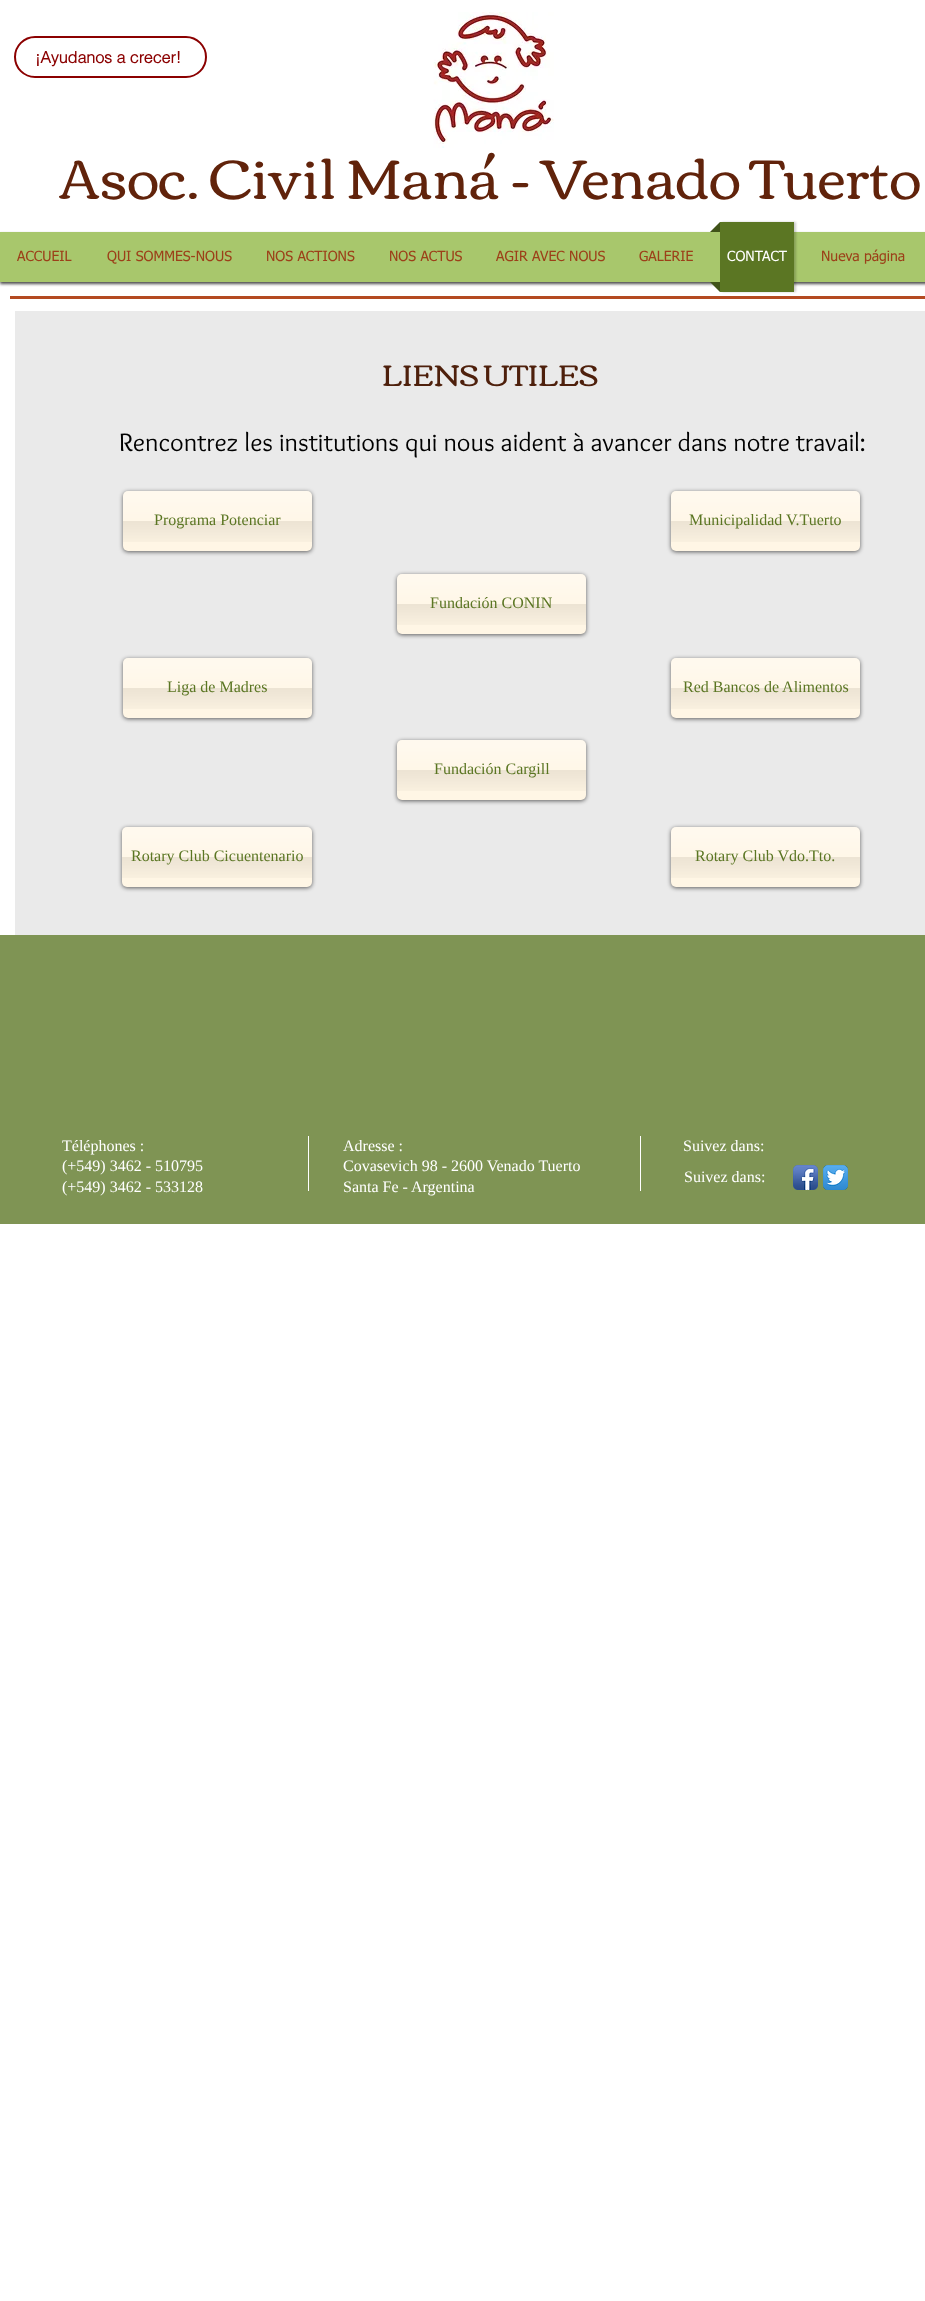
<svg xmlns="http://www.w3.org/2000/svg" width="925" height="2301">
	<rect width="100%" height="100%" fill="#FFFFFF" />
	<rect x="15" y="37" width="191" height="40" rx="20" fill="none" stroke="#8B0000" stroke-width="2" />
	<text x="35" y="63" font-family="helvetica" font-size="16" font-weight="700" fill="#8B0000">¡Ayudanos a crecer!</text>
	<image x="433" y="12" width="121" height="136" href="assets/img1.png" />
	<text x="59" y="199" font-family="Corben" font-size="56" fill="#61230B">Asoc. Civil Maná - Venado Tuerto</text>
	<rect x="0" y="234" width="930" height="50" fill="#000000" fill-opacity="0.7" filter="blur(1.5px)" />
	<rect x="0" y="232" width="925" height="50" fill="#A8C76C" />
	<g font-family="tahoma" font-size="14" fill="#9C4019">
		<text x="17" y="261">ACCUEIL</text>
		<text x="107" y="261">QUI SOMMES-NOUS</text>
		<text x="266" y="261">NOS ACTIONS</text>
		<text x="389" y="261">NOS ACTUS</text>
		<text x="496" y="261">AGIR AVEC NOUS</text>
		<text x="639" y="261">GALERIE</text>
	</g>
	<rect x="722" y="222" width="74" height="70" fill="#000000" fill-opacity="0.2" filter="blur(1px)" />
	<path d="M720 232H710L720 222Z" fill="#405319" />
	<rect x="720" y="222" width="74" height="70" fill="#5B7623" />
	<path d="M710 282H720V292Z" fill="#405319" />
	<text x="727" y="261" font-family="tahoma" font-size="14" fill="#FFFFFF">CONTACT</text>
	<text x="821" y="261" font-family="tahoma" font-size="14" fill="#9C4019">Nueva página</text>
	<rect x="10" y="296" width="915" height="3" fill="#B44A21" />
	<rect x="15" y="311" width="910" height="624" fill="#EAEAEA" />
	<text x="382" y="386" font-family="Corben" font-size="30" fill="#4E200C">LIENS UTILES</text>
	<text x="119" y="451" font-family="Overlock" font-size="26" fill="#000000">Rencontrez les institutions qui nous aident à avancer dans notre travail:</text>
	<rect x="123" y="492" width="189" height="60" rx="5" fill="#000000" fill-opacity="0.6" filter="blur(2px)" />
	<rect x="123" y="491" width="189" height="60" rx="5" fill="#FFF6E5" />
	<image x="123" y="491" width="189" height="51" href="assets/img2.png" />
	<text x="154" y="525" font-family="Liberation Serif" font-size="16" fill="#5B7623">Programa Potenciar</text>
	<rect x="671" y="492" width="189" height="60" rx="5" fill="#000000" fill-opacity="0.6" filter="blur(2px)" />
	<rect x="671" y="491" width="189" height="60" rx="5" fill="#FFF6E5" />
	<image x="671" y="491" width="189" height="51" href="assets/img2.png" />
	<text x="689" y="525" font-family="Liberation Serif" font-size="16" fill="#5B7623">Municipalidad V.Tuerto</text>
	<rect x="397" y="575" width="189" height="60" rx="5" fill="#000000" fill-opacity="0.6" filter="blur(2px)" />
	<rect x="397" y="574" width="189" height="60" rx="5" fill="#FFF6E5" />
	<image x="397" y="574" width="189" height="51" href="assets/img2.png" />
	<text x="430" y="608" font-family="Liberation Serif" font-size="16" fill="#5B7623">Fundación CONIN</text>
	<rect x="123" y="659" width="189" height="60" rx="5" fill="#000000" fill-opacity="0.6" filter="blur(2px)" />
	<rect x="123" y="658" width="189" height="60" rx="5" fill="#FFF6E5" />
	<image x="123" y="658" width="189" height="51" href="assets/img2.png" />
	<text x="167" y="692" font-family="Liberation Serif" font-size="16" fill="#5B7623">Liga de Madres</text>
	<rect x="671" y="659" width="189" height="60" rx="5" fill="#000000" fill-opacity="0.6" filter="blur(2px)" />
	<rect x="671" y="658" width="189" height="60" rx="5" fill="#FFF6E5" />
	<image x="671" y="658" width="189" height="51" href="assets/img2.png" />
	<text x="683" y="692" font-family="Liberation Serif" font-size="16" fill="#5B7623">Red Bancos de Alimentos</text>
	<rect x="397" y="741" width="189" height="60" rx="5" fill="#000000" fill-opacity="0.6" filter="blur(2px)" />
	<rect x="397" y="740" width="189" height="60" rx="5" fill="#FFF6E5" />
	<image x="397" y="740" width="189" height="51" href="assets/img2.png" />
	<text x="434" y="774" font-family="Liberation Serif" font-size="16" fill="#5B7623">Fundación Cargill</text>
	<rect x="122" y="828" width="190" height="60" rx="5" fill="#000000" fill-opacity="0.6" filter="blur(2px)" />
	<rect x="122" y="827" width="190" height="60" rx="5" fill="#FFF6E5" />
	<image x="122" y="827" width="190" height="51" href="assets/img3.png" />
	<text x="131" y="861" font-family="Liberation Serif" font-size="16" fill="#5B7623">Rotary Club Cicuentenario</text>
	<rect x="671" y="828" width="189" height="60" rx="5" fill="#000000" fill-opacity="0.6" filter="blur(2px)" />
	<rect x="671" y="827" width="189" height="60" rx="5" fill="#FFF6E5" />
	<image x="671" y="827" width="189" height="51" href="assets/img2.png" />
	<text x="695" y="861" font-family="Liberation Serif" font-size="16" fill="#5B7623">Rotary Club Vdo.Tto.</text>
	<rect x="0" y="935" width="925" height="289" fill="#7F9454" />
	<g font-family="Liberation Serif" font-size="16" fill="#FFFFFF">
		<text x="62" y="1151">Téléphones :</text>
		<text x="62" y="1171">(+549) 3462 - 510795</text>
		<text x="62" y="1192">(+549) 3462 - 533128</text>
	</g>
	<rect x="308" y="1136" width="1" height="55" fill="#FFFFFF" />
	<g font-family="Liberation Serif" font-size="16" fill="#FFFFFF">
		<text x="343" y="1151">Adresse :</text>
		<text x="343" y="1171">Covasevich 98 - 2600 Venado Tuerto</text>
		<text x="343" y="1192">Santa Fe - Argentina</text>
	</g>
	<rect x="640" y="1136" width="1" height="55" fill="#FFFFFF" />
	<g font-family="Liberation Serif" font-size="16" fill="#FFFFFF">
		<text x="683" y="1151">Suivez dans:</text>
		<text x="684" y="1182">Suivez dans:</text>
	</g>
	<image x="793" y="1165" width="25" height="25" href="assets/img4.png" />
	<image x="823" y="1165" width="25" height="25" href="assets/img5.png" />
</svg>
